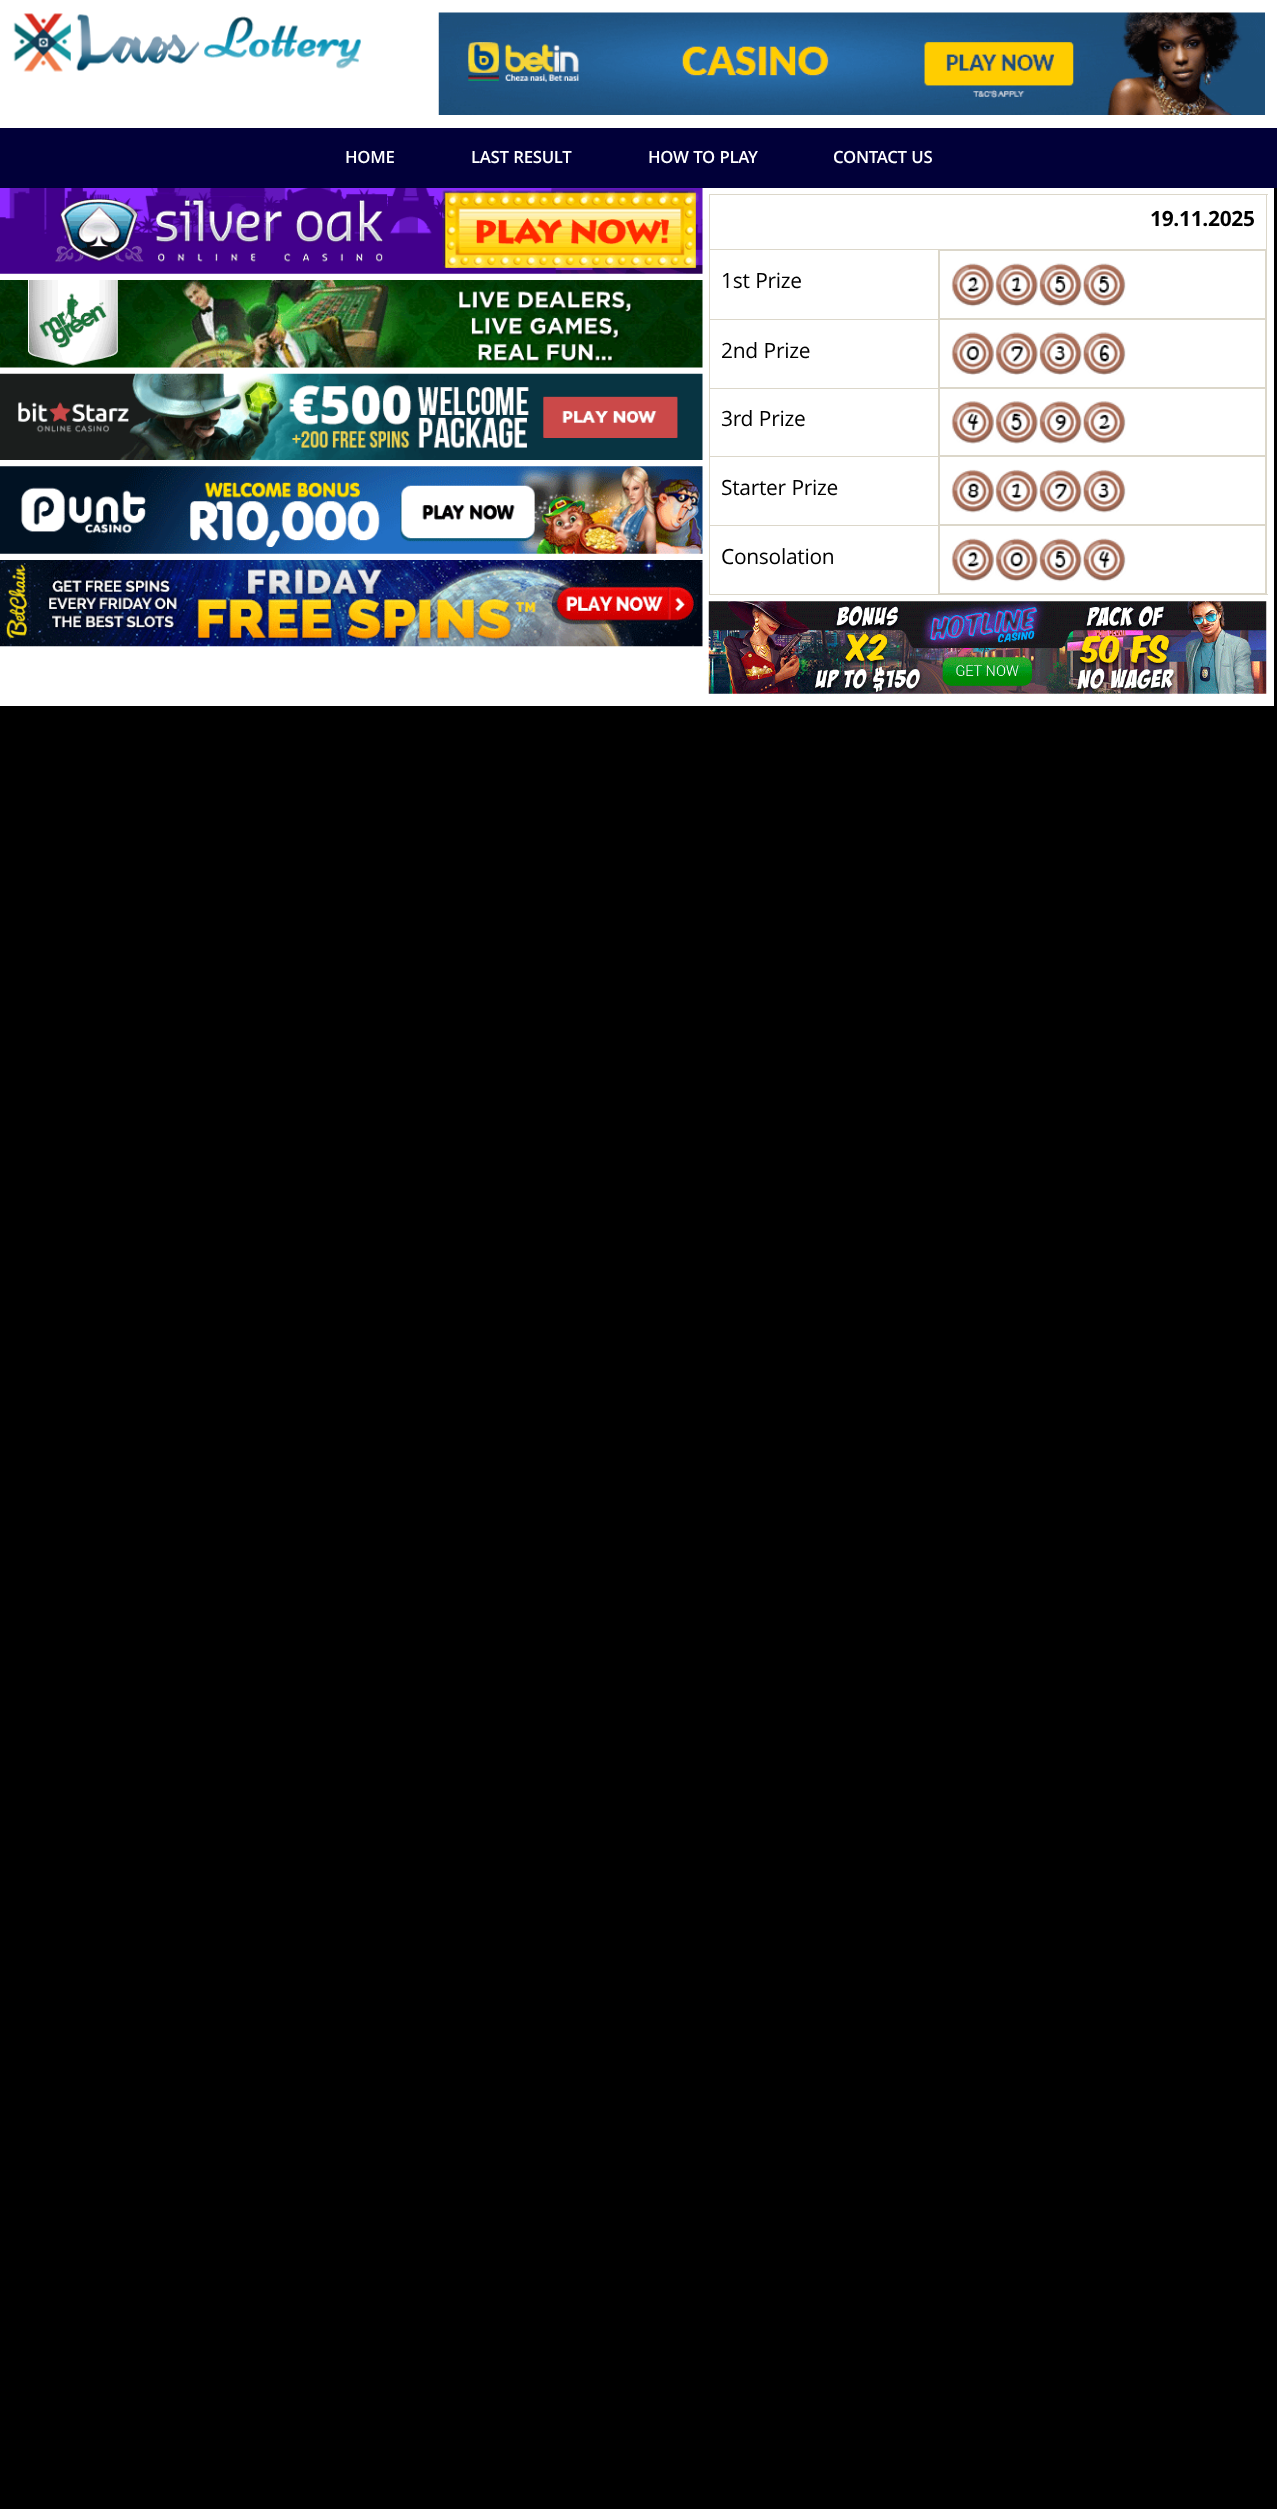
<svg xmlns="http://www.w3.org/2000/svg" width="1277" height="2509">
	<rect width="100%" height="100%" fill="#000000" />
	<rect x="0" y="0" width="1277" height="128" fill="#FFFFFF" />
	<image x="13" y="13" width="348" height="59" href="assets/img1.png" />
	<image x="438" y="12" width="827" height="103" href="assets/img2.png" />
	<rect x="0" y="128" width="1277" height="60" fill="#010039" />
	<g font-family="Khula" font-size="18" font-weight="600" letter-spacing="-0.3" fill="#FFFFFF">
		<text x="345" y="163">HOME</text>
		<text x="471" y="163">LAST RESULT</text>
		<text x="648" y="163">HOW TO PLAY</text>
		<text x="833" y="163">CONTACT US</text>
	</g>
	<rect x="0" y="188" width="1274" height="518" fill="#FFFFFF" />
	<image x="0" y="188" width="703" height="86" href="assets/img3.png" />
	<image x="0" y="280" width="703" height="88" href="assets/img4.png" />
	<image x="0" y="373" width="703" height="87" href="assets/img5.png" />
	<image x="0" y="466" width="703" height="88" href="assets/img6.png" />
	<image x="0" y="560" width="703" height="87" href="assets/img7.png" />
	<rect x="709" y="194" width="559" height="1" fill="#DCD7CA" />
	<rect x="1266" y="194" width="1" height="401" fill="#DCD7CA" />
	<rect x="709" y="594" width="559" height="1" fill="#DCD7CA" />
	<rect x="709" y="194" width="1" height="401" fill="#DCD7CA" />
	<rect x="710" y="319" width="229" height="1" fill="#DCD7CA" />
	<rect x="710" y="388" width="229" height="1" fill="#DCD7CA" />
	<rect x="710" y="456" width="229" height="1" fill="#DCD7CA" />
	<rect x="710" y="525" width="229" height="1" fill="#DCD7CA" />
	<rect x="938" y="525" width="1" height="69" fill="#DCD7CA" />
	<rect x="938" y="456" width="1" height="70" fill="#DCD7CA" />
	<rect x="938" y="388" width="1" height="70" fill="#DCD7CA" />
	<rect x="938" y="249" width="1" height="140" fill="#DCD7CA" />
	<rect x="710" y="249" width="556" height="1" fill="#DCD7CA" />
	<text x="1150" y="226" font-family="Khula" font-size="22.5" font-weight="700" letter-spacing="-0.3" fill="#000000">19.11.2025</text>
	<text x="721" y="288" font-family="Khula" font-size="22.5" letter-spacing="-0.3" fill="#000000">1st Prize</text>
	<rect x="939.5" y="250.5" width="326" height="68" fill="none" stroke="#DCD7CA" />
	<image x="951" y="263" width="43" height="44" href="assets/img8.png" />
	<image x="995" y="263" width="43" height="44" href="assets/img9.png" />
	<image x="1039" y="263" width="43" height="44" href="assets/img10.png" />
	<image x="1082" y="263" width="44" height="44" href="assets/img11.png" />
	<text x="721" y="358" font-family="Khula" font-size="22.5" letter-spacing="-0.3" fill="#000000">2nd Prize</text>
	<rect x="939.5" y="319.5" width="326" height="68" fill="none" stroke="#DCD7CA" />
	<image x="951" y="332" width="43" height="43" href="assets/img12.png" />
	<image x="995" y="332" width="43" height="43" href="assets/img13.png" />
	<image x="1039" y="332" width="43" height="43" href="assets/img14.png" />
	<image x="1082" y="332" width="44" height="43" href="assets/img15.png" />
	<text x="721" y="426" font-family="Khula" font-size="22.5" letter-spacing="-0.3" fill="#000000">3rd Prize</text>
	<rect x="939.5" y="388.5" width="326" height="67" fill="none" stroke="#DCD7CA" />
	<image x="951" y="401" width="43" height="43" href="assets/img16.png" />
	<image x="995" y="401" width="43" height="43" href="assets/img17.png" />
	<image x="1039" y="401" width="43" height="43" href="assets/img18.png" />
	<image x="1082" y="401" width="44" height="43" href="assets/img19.png" />
	<text x="721" y="495" font-family="Khula" font-size="22.5" letter-spacing="-0.3" fill="#000000">Starter Prize</text>
	<rect x="939.5" y="456.5" width="326" height="68" fill="none" stroke="#DCD7CA" />
	<image x="951" y="469" width="43" height="44" href="assets/img20.png" />
	<image x="995" y="469" width="43" height="44" href="assets/img21.png" />
	<image x="1039" y="469" width="43" height="44" href="assets/img22.png" />
	<image x="1082" y="469" width="44" height="44" href="assets/img23.png" />
	<text x="721" y="564" font-family="Khula" font-size="22.5" letter-spacing="-0.3" fill="#000000">Consolation</text>
	<rect x="939.5" y="525.5" width="326" height="68" fill="none" stroke="#DCD7CA" />
	<image x="951" y="538" width="43" height="44" href="assets/img8.png" />
	<image x="995" y="538" width="43" height="44" href="assets/img24.png" />
	<image x="1039" y="538" width="43" height="44" href="assets/img10.png" />
	<image x="1082" y="538" width="44" height="44" href="assets/img25.png" />
	<image x="708" y="601" width="559" height="93" href="assets/img26.png" />
</svg>
